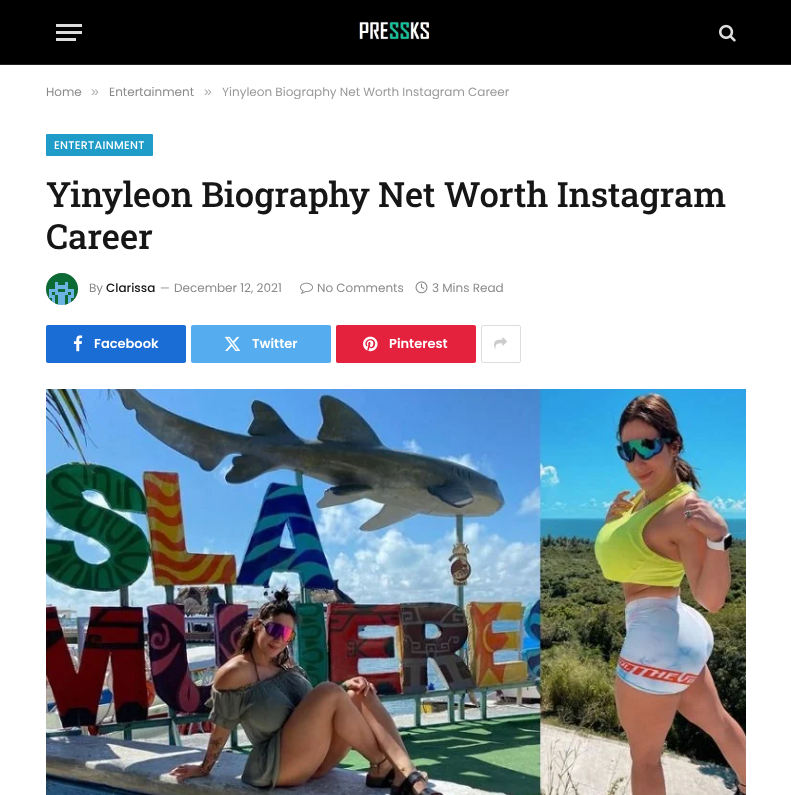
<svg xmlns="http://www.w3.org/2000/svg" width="791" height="795">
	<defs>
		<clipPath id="clip1"><rect x="21" y="85" width="750" height="14" /></clipPath>
	</defs>
	<rect width="100%" height="100%" fill="#FFFFFF" />
	<rect x="0" y="0" width="791" height="64" fill="#000000" />
	<rect x="0" y="64" width="791" height="1" fill="#222222" />
	<rect x="56" y="38" width="20" height="3" fill="#DDDDDD" />
	<rect x="56" y="24" width="26" height="3" fill="#DDDDDD" />
	<rect x="56" y="31" width="26" height="3" fill="#DDDDDD" />
	<image x="358" y="21" width="72" height="19" href="assets/img1.png" />
	<image x="719" y="24" width="17" height="18" href="assets/img2.png" />
	<text x="46" y="96" font-family="Poppins" font-size="12" fill="#8A8A8A">Home</text>
	<text x="91" y="96" font-family="Liberation Sans" font-size="14" fill="#ADADAD">»</text>
	<text x="109" y="96" font-family="Poppins" font-size="12" fill="#8A8A8A">Entertainment</text>
	<text x="204" y="96" font-family="Liberation Sans" font-size="14" fill="#ADADAD">»</text>
	<g clip-path="url(#clip1)">
		<text x="222" y="96" font-family="Poppins" font-size="12" fill="#999999">Yinyleon Biography Net Worth Instagram Career</text>
	</g>
	<rect x="46" y="134" width="107" height="22" rx="1" fill="#209CC9" />
	<text x="54" y="149" font-family="Poppins" font-size="11" font-weight="500" letter-spacing="0.3" fill="#FFFFFF">ENTERTAINMENT</text>
	<g font-family="Roboto Slab" font-size="34.75" font-weight="500" letter-spacing="-0.15" fill="#161616">
		<text x="46" y="207">Yinyleon Biography Net Worth Instagram</text>
		<text x="46" y="249">Career</text>
	</g>
	<rect x="46" y="273" width="32" height="32" rx="16" fill="#000000" fill-opacity="0.2" filter="blur(0.5px)" />
	<image x="46" y="273" width="32" height="32" href="assets/img3.png" />
	<text x="89" y="292" font-family="Poppins" font-size="12" fill="#8A8A8A">By</text>
	<text x="106" y="292" font-family="Poppins" font-size="12" font-weight="500" fill="#161616">Clarissa</text>
	<text x="160" y="292" font-family="Poppins" font-size="11" fill="#8A8A8A">—</text>
	<text x="174" y="292" font-family="Poppins" font-size="12" fill="#8A8A8A">December 12, 2021</text>
	<image x="300" y="282" width="13" height="12" href="assets/img4.png" />
	<text x="317" y="292" font-family="Poppins" font-size="12" fill="#8A8A8A">No Comments</text>
	<image x="415" y="281" width="13" height="13" href="assets/img5.png" />
	<text x="432" y="292" font-family="Poppins" font-size="12" fill="#8A8A8A">3 Mins Read</text>
	<rect x="46" y="325" width="140" height="38" rx="2" fill="#1A6DD4" />
	<image x="73" y="335" width="10" height="17" href="assets/img6.png" />
	<text x="94" y="348" font-family="Poppins" font-size="13" font-weight="600" fill="#FFFFFF">Facebook</text>
	<rect x="191" y="325" width="140" height="38" rx="2" fill="#55ACEF" />
	<image x="224" y="336" width="17" height="15" href="assets/img7.png" />
	<text x="252" y="348" font-family="Poppins" font-size="13" font-weight="600" fill="#FFFFFF">Twitter</text>
	<rect x="336" y="325" width="140" height="38" rx="2" fill="#E4223E" />
	<image x="363" y="336" width="15" height="16" href="assets/img8.png" />
	<text x="389" y="348" font-family="Poppins" font-size="13" font-weight="600" fill="#FFFFFF">Pinterest</text>
	<rect x="481.5" y="325.5" width="39" height="37" rx="1.5" fill="none" stroke="#DDDDDD" />
	<image x="494" y="337" width="13" height="12" href="assets/img9.png" />
	<image x="46" y="389" width="700" height="406" href="assets/img10.png" />
</svg>
